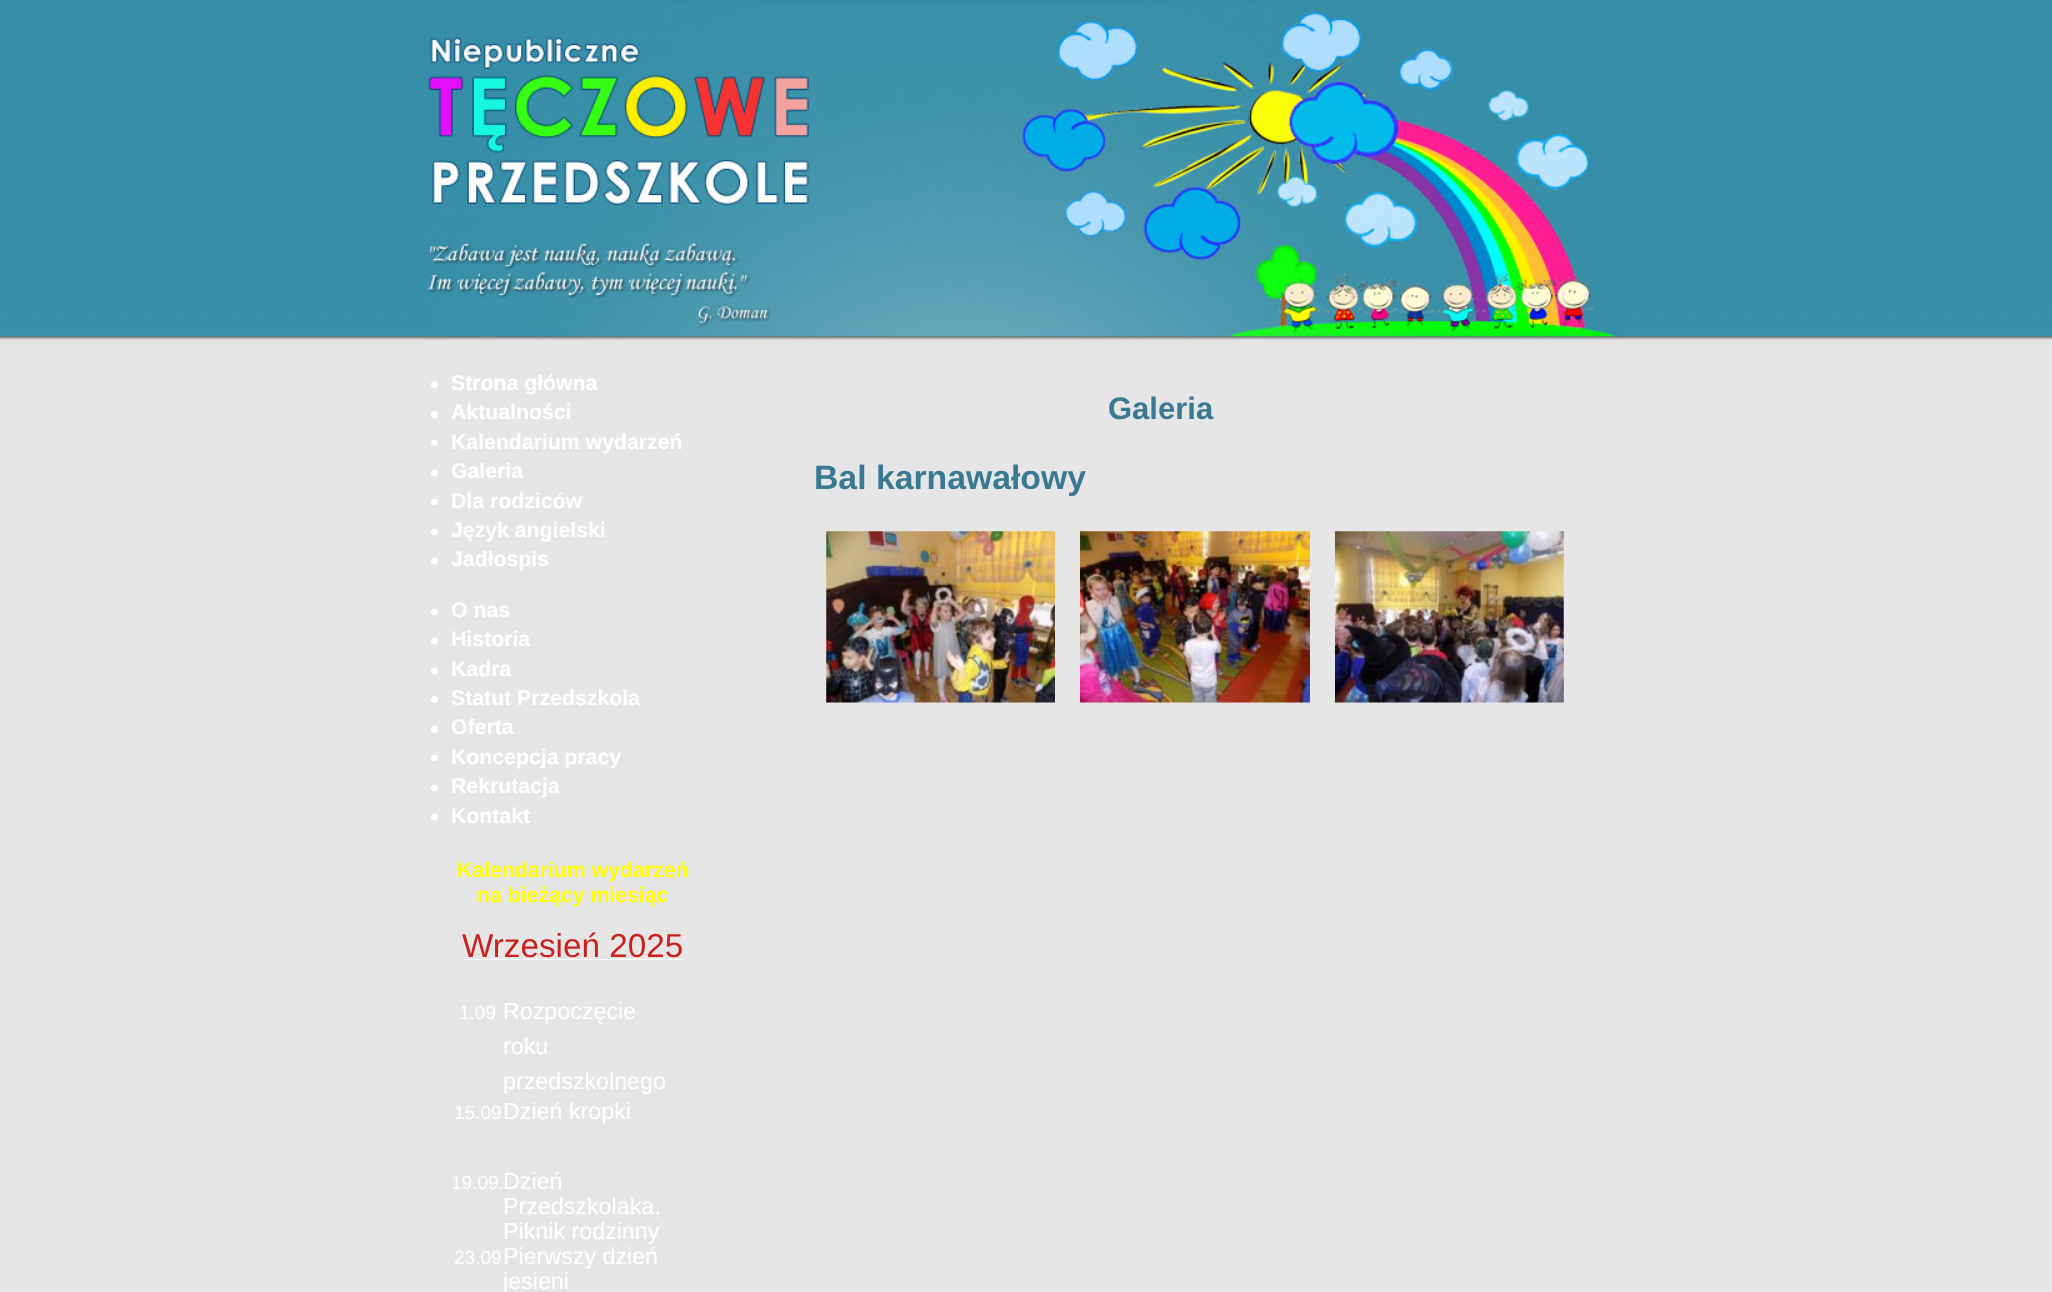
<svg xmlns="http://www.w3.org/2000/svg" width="2052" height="1292">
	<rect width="100%" height="100%" fill="#E6E6E6" />
	<image x="0" y="0" width="2052" height="340" href="assets/img1.png" />
	<image x="424" y="4" width="1200" height="336" href="assets/img2.png" />
	<circle cx="434.5" cy="384.5" r="3.5" fill="#FFFFFF" />
	<text x="451" y="390" font-family="Liberation Sans" font-size="21.25" font-weight="700" fill="#FFFFFF">Strona główna</text>
	<circle cx="434.5" cy="414.5" r="3.5" fill="#FFFFFF" />
	<text x="451" y="419" font-family="Liberation Sans" font-size="21.25" font-weight="700" fill="#FFFFFF">Aktualności</text>
	<rect x="431" y="440" width="7" height="6" rx="3" fill="#FFFFFF" />
	<text x="451" y="449" font-family="Liberation Sans" font-size="21.25" font-weight="700" fill="#FFFFFF">Kalendarium wydarzeń</text>
	<rect x="431" y="470" width="7" height="6" rx="3" fill="#FFFFFF" />
	<text x="451" y="478" font-family="Liberation Sans" font-size="21.25" font-weight="700" fill="#FFFFFF">Galeria</text>
	<rect x="431" y="499" width="7" height="6" rx="3" fill="#FFFFFF" />
	<text x="451" y="508" font-family="Liberation Sans" font-size="21.25" font-weight="700" fill="#FFFFFF">Dla rodziców</text>
	<rect x="431" y="529" width="7" height="6" rx="3" fill="#FFFFFF" />
	<text x="451" y="537" font-family="Liberation Sans" font-size="21.25" font-weight="700" fill="#FFFFFF">Język angielski</text>
	<rect x="431" y="558" width="7" height="6" rx="3" fill="#FFFFFF" />
	<text x="451" y="566" font-family="Liberation Sans" font-size="21.25" font-weight="700" fill="#FFFFFF">Jadłospis</text>
	<rect x="431" y="609" width="7" height="6" rx="3" fill="#FFFFFF" />
	<text x="451" y="617" font-family="Liberation Sans" font-size="21.25" font-weight="700" fill="#FFFFFF">O nas</text>
	<rect x="431" y="638" width="7" height="6" rx="3" fill="#FFFFFF" />
	<text x="451" y="646" font-family="Liberation Sans" font-size="21.25" font-weight="700" fill="#FFFFFF">Historia</text>
	<rect x="431" y="668" width="7" height="6" rx="3" fill="#FFFFFF" />
	<text x="451" y="676" font-family="Liberation Sans" font-size="21.25" font-weight="700" fill="#FFFFFF">Kadra</text>
	<circle cx="434.5" cy="699.5" r="3.5" fill="#FFFFFF" />
	<text x="451" y="705" font-family="Liberation Sans" font-size="21.25" font-weight="700" fill="#FFFFFF">Statut Przedszkola</text>
	<circle cx="434.5" cy="729.5" r="3.5" fill="#FFFFFF" />
	<text x="451" y="734" font-family="Liberation Sans" font-size="21.25" font-weight="700" fill="#FFFFFF">Oferta</text>
	<rect x="431" y="755" width="7" height="6" rx="3" fill="#FFFFFF" />
	<text x="451" y="764" font-family="Liberation Sans" font-size="21.25" font-weight="700" fill="#FFFFFF">Koncepcja pracy</text>
	<rect x="431" y="785" width="7" height="6" rx="3" fill="#FFFFFF" />
	<text x="451" y="793" font-family="Liberation Sans" font-size="21.25" font-weight="700" fill="#FFFFFF">Rekrutacja</text>
	<rect x="431" y="814" width="7" height="6" rx="3" fill="#FFFFFF" />
	<text x="451" y="823" font-family="Liberation Sans" font-size="21.25" font-weight="700" fill="#FFFFFF">Kontakt</text>
	<g font-family="Liberation Sans" font-size="21.25" font-weight="700" fill="#FFFF00">
		<text x="457" y="877">Kalendarium wydarzeń</text>
		<text x="477" y="902">na bieżący miesiąc</text>
	</g>
	<text x="462" y="957" font-family="Liberation Sans" font-size="33.25" fill="#C9211E">Wrzesień 2025</text>
	<rect x="463" y="959" width="221" height="1" fill="#FFFFFF" />
	<text x="459" y="1019" font-family="Liberation Sans" font-size="19" fill="#FFFFFF">1.09</text>
	<g font-family="Liberation Sans" font-size="23.25" fill="#FFFFFF">
		<text x="503" y="1019">Rozpoczęcie</text>
		<text x="503" y="1054">roku</text>
		<text x="503" y="1089">przedszkolnego</text>
	</g>
	<text x="454" y="1119" font-family="Liberation Sans" font-size="19" fill="#FFFFFF">15.09</text>
	<text x="503" y="1119" font-family="Liberation Sans" font-size="23.25" fill="#FFFFFF">Dzień kropki</text>
	<text x="451" y="1189" font-family="Liberation Sans" font-size="19" fill="#FFFFFF">19.09.</text>
	<g font-family="Liberation Sans" font-size="23.25" fill="#FFFFFF">
		<text x="503" y="1189">Dzień</text>
		<text x="503" y="1214">Przedszkolaka,</text>
		<text x="503" y="1239">Piknik rodzinny</text>
	</g>
	<text x="454" y="1264" font-family="Liberation Sans" font-size="19" fill="#FFFFFF">23.09</text>
	<g font-family="Liberation Sans" font-size="23.25" fill="#FFFFFF">
		<text x="503" y="1264">Pierwszy dzień</text>
		<text x="503" y="1289">jesieni</text>
	</g>
	<text x="1108" y="419" font-family="Liberation Sans" font-size="31" font-weight="700" fill="#397994">Galeria</text>
	<text x="814" y="489" font-family="Liberation Sans" font-size="33.75" font-weight="700" fill="#397994">Bal karnawałowy</text>
	<image x="826" y="531" width="229" height="172" href="assets/img3.png" />
	<image x="1080" y="531" width="230" height="172" href="assets/img4.png" />
	<image x="1335" y="531" width="229" height="172" href="assets/img5.png" />
</svg>
